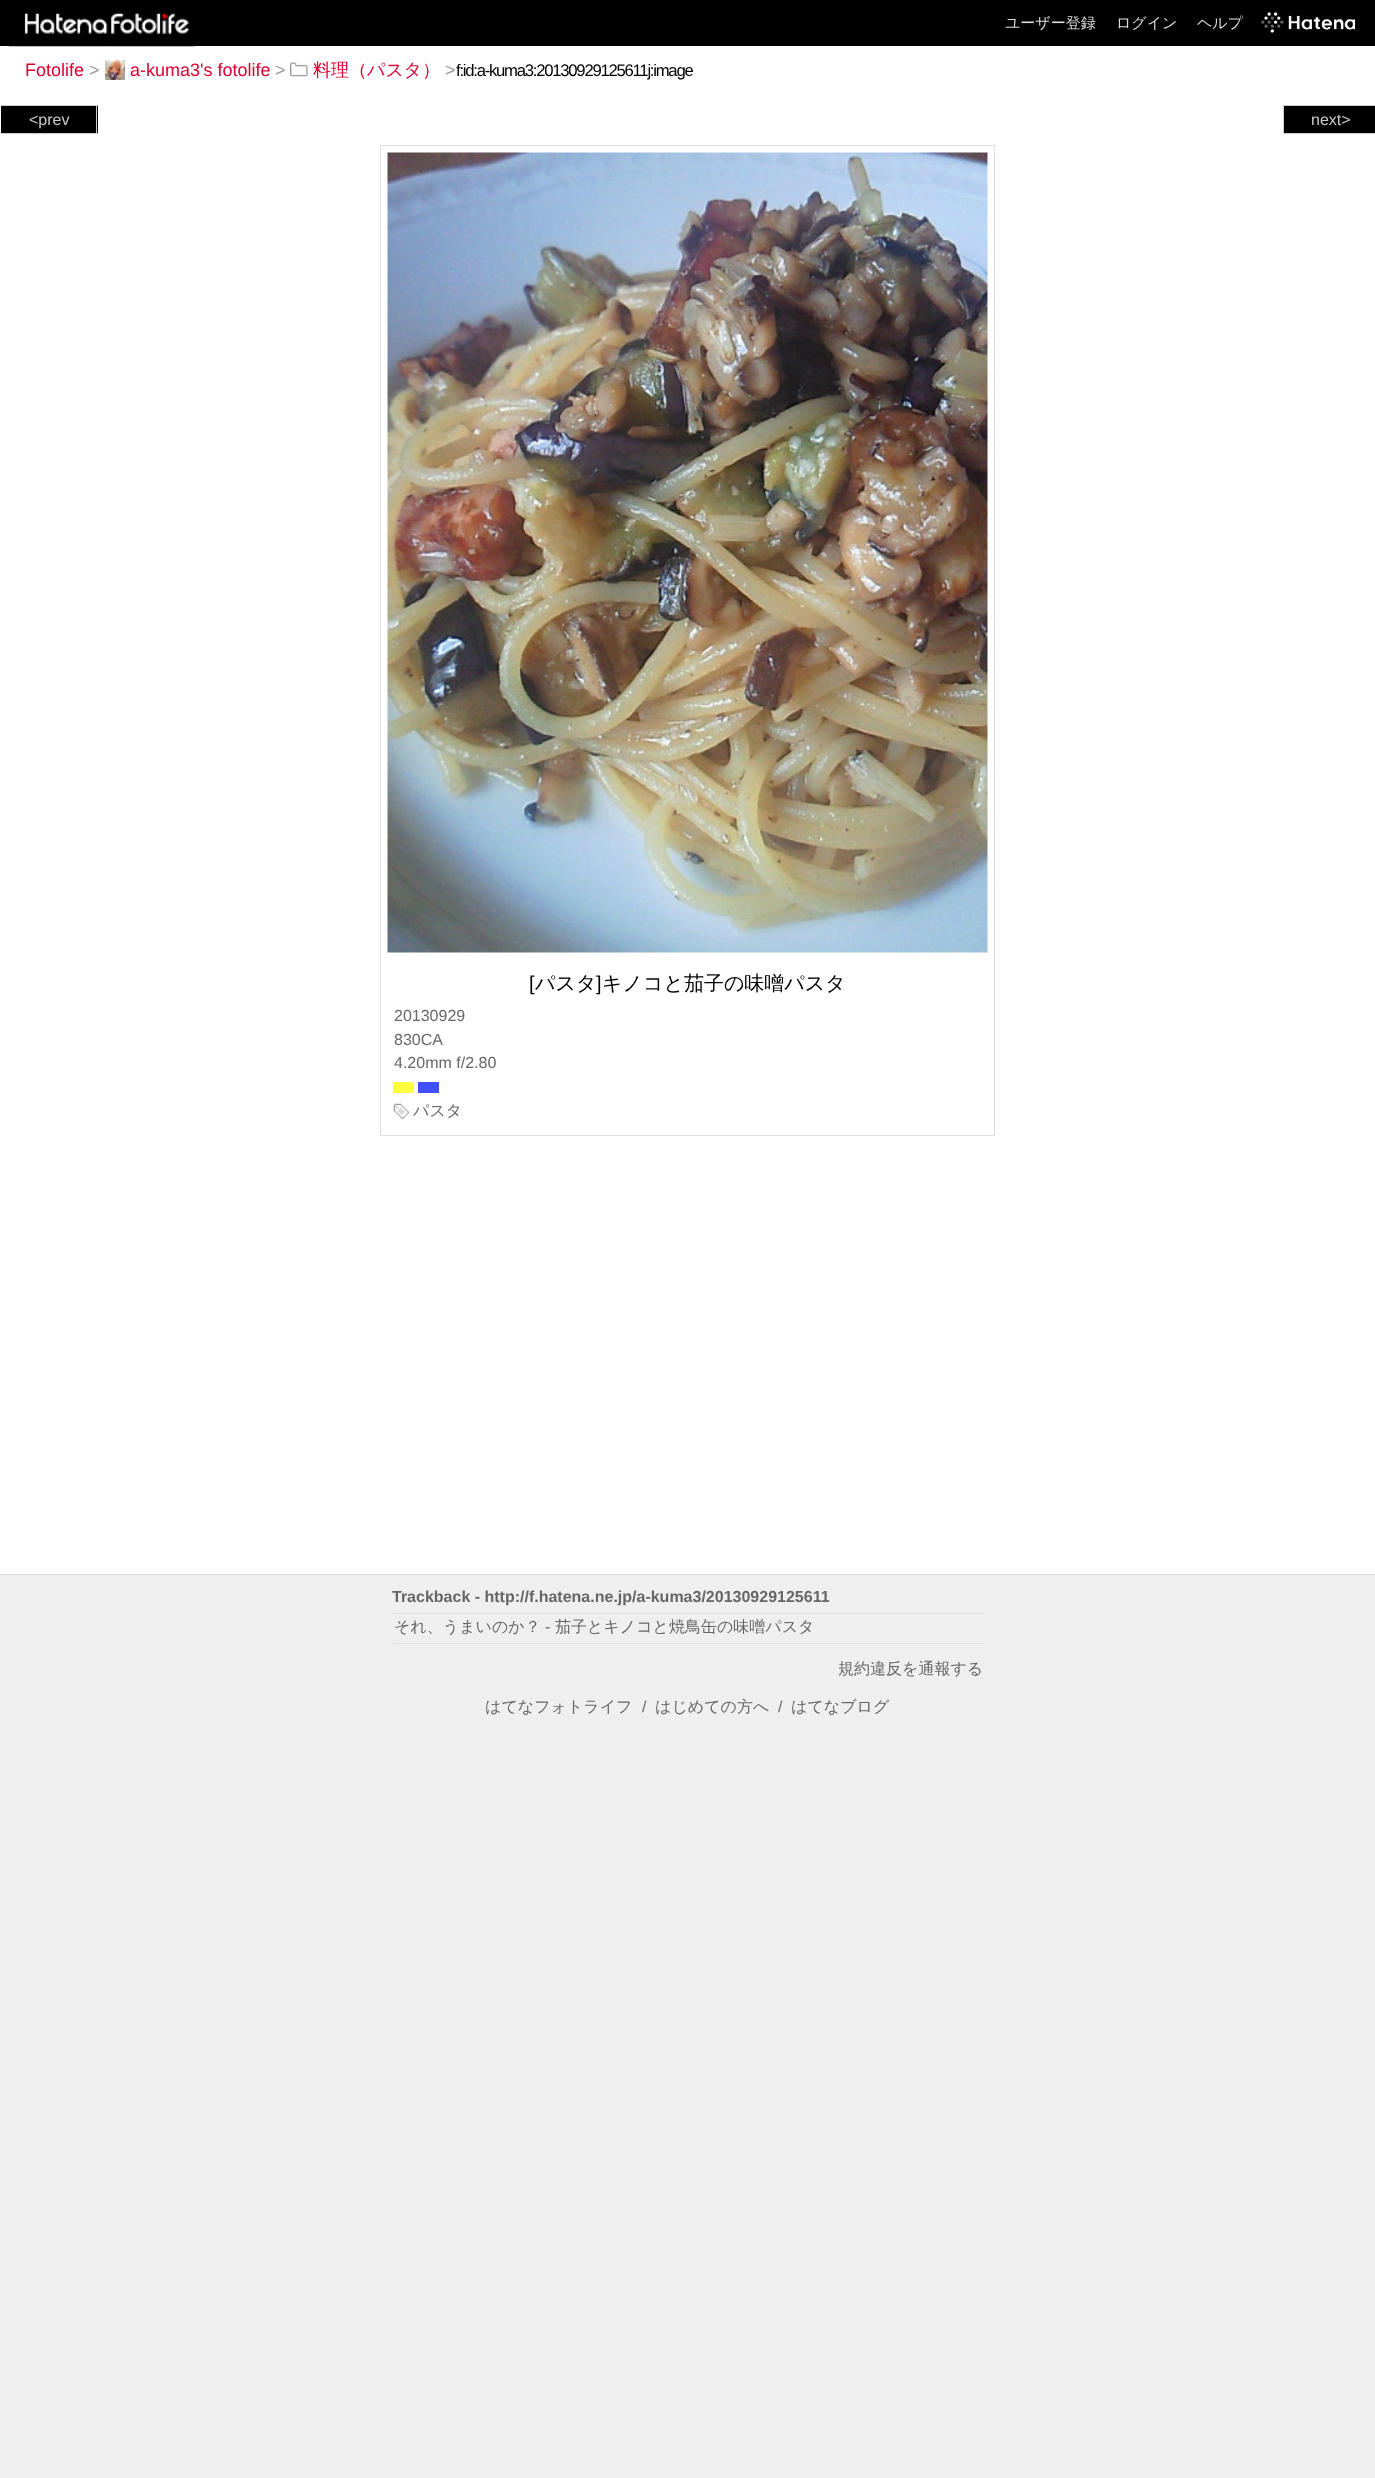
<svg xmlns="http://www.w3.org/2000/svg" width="1375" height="2478">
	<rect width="100%" height="100%" fill="#EFEFEF" />
	<rect x="0" y="0" width="1375" height="46" fill="#000000" />
	<rect x="0" y="46" width="1375" height="1528" fill="#FFFFFF" />
	<image x="8" y="13" width="104" height="34" href="assets/img1.png" />
	<image x="111" y="13" width="84" height="34" href="assets/img2.png" />
	<g font-family="WenQuanYi Zen Hei" font-size="15" font-weight="500" fill="#DDDDDD">
		<text x="1005" y="28">ユーザー登録</text>
		<text x="1116" y="28">ログイン</text>
		<text x="1197" y="28">ヘルプ</text>
	</g>
	<image x="1261" y="12" width="94" height="21" href="assets/img3.png" />
	<text x="25" y="76" font-family="Liberation Sans" font-size="18" fill="#DE002F">Fotolife</text>
	<text x="89" y="76" font-family="Liberation Sans" font-size="18" fill="#999999">&gt;</text>
	<image x="105" y="60" width="20" height="20" href="assets/img4.png" />
	<text x="130" y="76" font-family="Liberation Sans" font-size="18" fill="#DE002F">a-kuma3's fotolife</text>
	<text x="275" y="76" font-family="Liberation Sans" font-size="18" fill="#999999">&gt;</text>
	<image x="290" y="62" width="18" height="15" href="assets/img5.png" />
	<text x="313" y="76" font-family="WenQuanYi Zen Hei" font-size="18" font-weight="500" fill="#DE002F">料理（パスタ）</text>
	<text x="445" y="76" font-family="Liberation Sans" font-size="18" fill="#999999">&gt;</text>
	<text x="456" y="76" font-family="Liberation Sans" font-size="16.7" letter-spacing="-1.25" fill="#000000">f:id:a-kuma3:20130929125611j:image</text>
	<rect x="0" y="1574" width="1375" height="1" fill="#DEDEDE" />
	<rect x="1" y="106" width="97" height="27" fill="#000000" />
	<rect x="1" y="105" width="97" height="1" fill="#CCCCCC" />
	<rect x="96" y="105" width="1" height="29" fill="#CCCCCC" />
	<rect x="1" y="133" width="97" height="1" fill="#CCCCCC" />
	<text x="29" y="125" font-family="Liberation Sans" font-size="16" fill="#CCCCCC">&lt;prev</text>
	<rect x="1284" y="106" width="91" height="27" fill="#000000" />
	<rect x="1283" y="105" width="92" height="1" fill="#CCCCCC" />
	<rect x="1283" y="133" width="92" height="1" fill="#CCCCCC" />
	<rect x="1283" y="105" width="1" height="29" fill="#CCCCCC" />
	<text x="1311" y="125" font-family="Liberation Sans" font-size="16" fill="#CCCCCC">next&gt;</text>
	<rect x="380.5" y="145.5" width="614" height="990" fill="none" stroke="#DEDEDE" />
	<image x="387" y="152" width="601" height="801" href="assets/img6.png" />
	<text x="529" y="990" font-family="Liberation Sans" font-size="20" fill="#000000">[</text>
	<text x="535" y="990" font-family="WenQuanYi Zen Hei" font-size="20" font-weight="500" fill="#000000">パスタ</text>
	<text x="596" y="990" font-family="Liberation Sans" font-size="20" fill="#000000">]</text>
	<text x="602" y="990" font-family="WenQuanYi Zen Hei" font-size="20" font-weight="500" fill="#000000">キノコと茄子の味噌パスタ</text>
	<g font-family="Liberation Sans" font-size="16" fill="#666666">
		<text x="394" y="1021">20130929</text>
		<text x="394" y="1045">830CA</text>
		<text x="394" y="1068">4.20mm f/2.80</text>
	</g>
	<rect x="393" y="1082" width="21" height="11" fill="#FFFF40" />
	<rect x="418" y="1082" width="21" height="11" fill="#4050FF" />
	<image x="393" y="1103" width="16" height="16" href="assets/img7.png" />
	<text x="413" y="1116" font-family="WenQuanYi Zen Hei" font-size="16" font-weight="500" fill="#666666">パスタ</text>
	<text x="392" y="1602" font-family="Liberation Sans" font-size="16" font-weight="700" fill="#666666">Trackback - http://f.hatena.ne.jp/a-kuma3/20130929125611</text>
	<rect x="393" y="1613" width="591" height="1" fill="#E1E1E1" />
	<rect x="393" y="1643" width="591" height="1" fill="#E1E1E1" />
	<text x="394" y="1632" font-family="WenQuanYi Zen Hei" font-size="16" font-weight="500" fill="#666666">それ、うまいのか？</text>
	<text x="545" y="1632" font-family="Liberation Sans" font-size="16" fill="#666666">-</text>
	<g font-family="WenQuanYi Zen Hei" font-size="16" font-weight="500" fill="#666666">
		<text x="555" y="1632">茄子とキノコと焼鳥缶の味噌パスタ</text>
		<text x="838" y="1674">規約違反を通報する</text>
		<text x="485" y="1712">はてなフォトライフ</text>
	</g>
	<text x="642" y="1712" font-family="Liberation Sans" font-size="16" fill="#666666">/</text>
	<text x="655" y="1712" font-family="WenQuanYi Zen Hei" font-size="16" font-weight="500" fill="#666666">はじめての方へ</text>
	<text x="778" y="1712" font-family="Liberation Sans" font-size="16" fill="#666666">/</text>
	<text x="791" y="1712" font-family="WenQuanYi Zen Hei" font-size="16" font-weight="500" fill="#666666">はてなブログ</text>
</svg>
